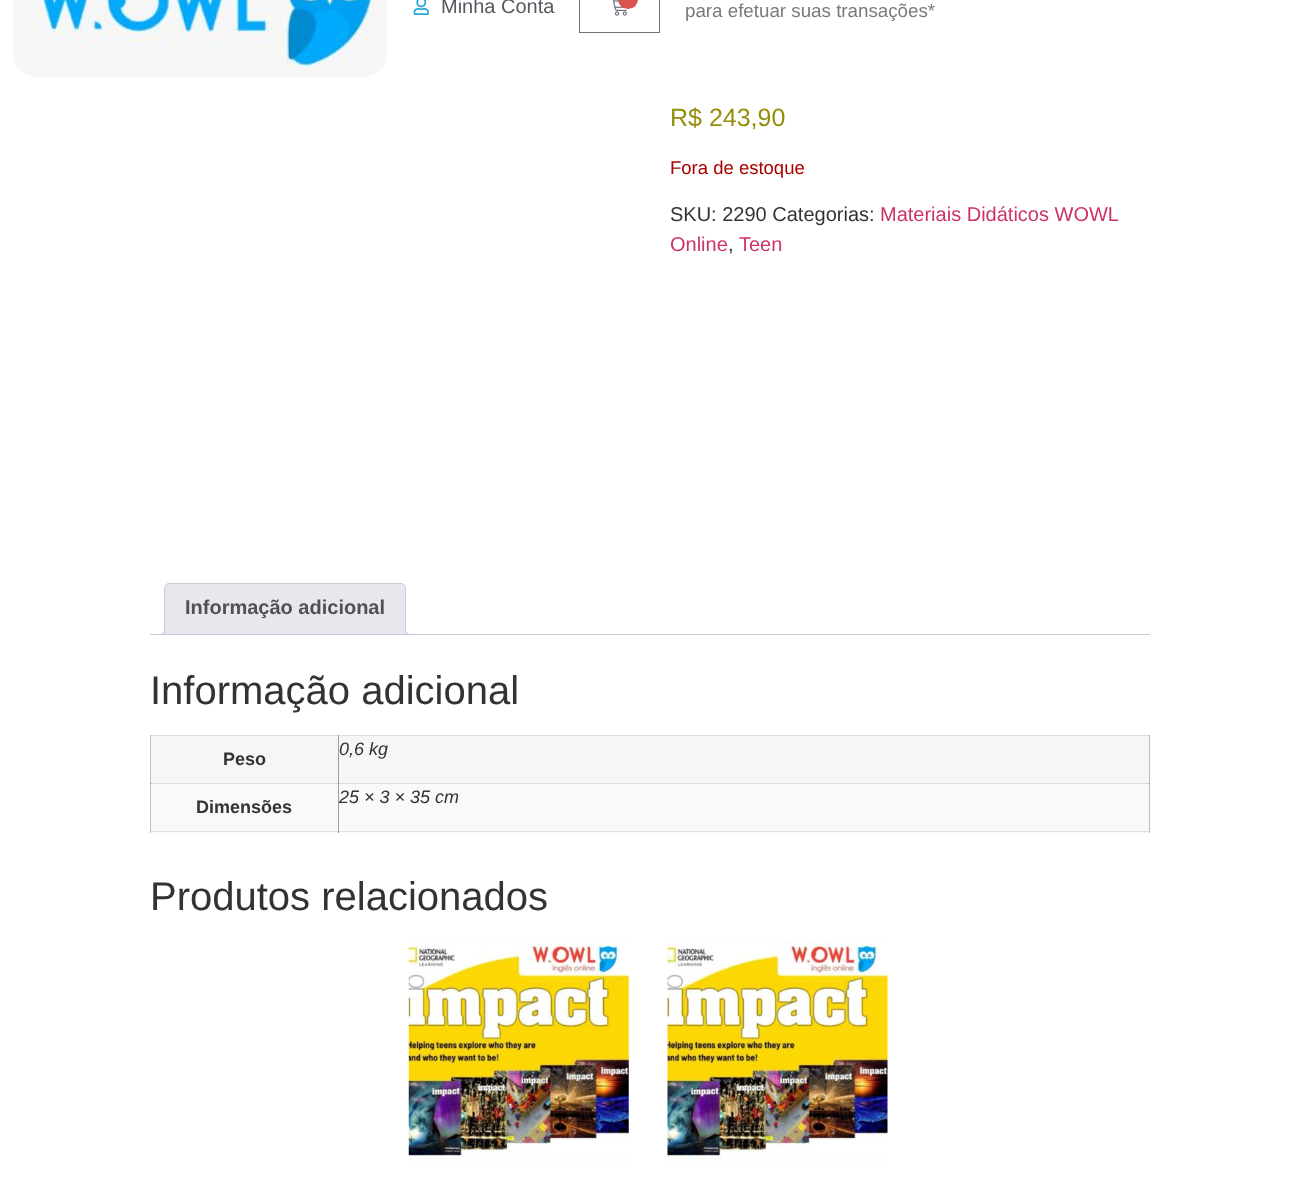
<svg xmlns="http://www.w3.org/2000/svg" width="1299" height="1201">
	<defs>
		<clipPath id="clip1"><rect x="150" y="583" width="1000" height="52" /></clipPath>
	</defs>
	<rect width="100%" height="100%" fill="#FFFFFF" />
	<rect x="150" y="735" width="1" height="98" fill="#C0C0C0" />
	<rect x="150" y="783" width="1" height="1" fill="#979797" />
	<rect x="150" y="831" width="1" height="1" fill="#B3B3B3" />
	<rect x="150" y="735" width="1" height="1" fill="#B3B3B3" />
	<image x="13" y="0" width="374" height="77" href="assets/img1.png" />
	<image x="413" y="0" width="16" height="15" href="assets/img2.png" />
	<text x="441" y="13" font-family="Liberation Sans" font-size="20" fill="#54595F">Minha Conta</text>
	<rect x="579.5" y="-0.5" width="80" height="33" fill="none" stroke="#69727D" />
	<image x="612" y="0" width="15" height="16" href="assets/img3.png" />
	<rect x="618" y="-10" width="20" height="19" rx="10" fill="#D9534F" />
	<text x="685" y="17" font-family="Liberation Sans" font-size="18.75" fill="#7A7A7A">para efetuar suas transações*</text>
	<text x="670" y="126" font-family="Liberation Sans" font-size="25" fill="#958E09">R$ 243,90</text>
	<text x="670" y="174" font-family="Liberation Sans" font-size="18.5" fill="#AA0000">Fora de estoque</text>
	<text x="670" y="221" font-family="Liberation Sans" font-size="20" fill="#333333">SKU: 2290 Categorias:</text>
	<g font-family="Liberation Sans" font-size="20" fill="#CC3366">
		<text x="880" y="221">Materiais Didáticos WOWL</text>
		<text x="670" y="251">Online</text>
	</g>
	<text x="728" y="251" font-family="Liberation Sans" font-size="20" fill="#333333">,</text>
	<text x="739" y="251" font-family="Liberation Sans" font-size="20" fill="#CC3366">Teen</text>
	<path d="M169 583.5H401C403.5 583.5 405.5 585.5 405.5 588V634.5H164.5V588C164.5 585.5 166.5 583.5 169 583.5Z" fill="#E9E6ED" stroke="#CFC8D8" />
	<text x="185" y="614" font-family="Liberation Sans" font-size="20" font-weight="700" fill="#515151">Informação adicional</text>
	<g clip-path="url(#clip1)">
		<path d="M161 635V638C166.5 638 168 636.5 168 631H165C164.5 633 163 634.5 161 635Z" fill="#E9E6ED" />
	</g>
	<path d="M159 629H165C165 633 163 635 159 635ZM159 629H164C164 632.5 162.5 634 159 634Z" fill="#CFC8D8" fill-rule="evenodd" />
	<g clip-path="url(#clip1)">
		<path d="M403 631C403 635.5 404 638 409 638V635C407 634.5 405.5 633 405 631Z" fill="#E9E6ED" />
	</g>
	<path d="M405 629H411V635C408 635 405 633.5 405 630ZM406 629H411V634C409 634 406 633 406 630Z" fill="#CFC8D8" fill-rule="evenodd" />
	<rect x="150" y="634" width="1000" height="1" fill="#CFC8D8" />
	<text x="150" y="704" font-family="Liberation Sans" font-size="40" fill="#333333">Informação adicional</text>
	<rect x="151" y="736" width="187" height="47" fill="#F6F6F6" />
	<rect x="151" y="783" width="999" height="1" fill="#DDDDDD" />
	<rect x="338" y="735" width="1" height="49" fill="#9E9E9E" />
	<rect x="338" y="783" width="1" height="1" fill="#777777" />
	<rect x="151" y="735" width="188" height="1" fill="#DDDDDD" />
	<rect x="338" y="735" width="1" height="1" fill="#989898" />
	<text x="223" y="765" font-family="Liberation Sans" font-size="18" font-weight="700" fill="#333333">Peso</text>
	<rect x="339" y="736" width="810" height="47" fill="#F6F6F6" />
	<rect x="1149" y="735" width="1" height="49" fill="#BBBBBB" />
	<rect x="1149" y="783" width="1" height="1" fill="#8E8E8E" />
	<rect x="339" y="735" width="811" height="1" fill="#DDDDDD" />
	<rect x="1149" y="735" width="1" height="1" fill="#AFAFAF" />
	<text x="339" y="755" font-family="Liberation Sans" font-size="18" font-style="italic" fill="#333333">0,6 kg</text>
	<rect x="339" y="784" width="810" height="49" fill="#F9F9F9" />
	<rect x="339" y="831" width="811" height="1" fill="#E0E0E0" />
	<rect x="1149" y="784" width="1" height="49" fill="#BDBDBD" />
	<rect x="1149" y="831" width="1" height="1" fill="#AAAAAA" />
	<rect x="151" y="784" width="187" height="49" fill="#F9F9F9" />
	<rect x="151" y="831" width="188" height="1" fill="#E0E0E0" />
	<rect x="338" y="784" width="1" height="49" fill="#9F9F9F" />
	<text x="339" y="803" font-family="Liberation Sans" font-size="18" font-style="italic" fill="#333333">25 × 3 × 35 cm</text>
	<rect x="338" y="831" width="1" height="1" fill="#898989" />
	<text x="196" y="813" font-family="Liberation Sans" font-size="18" font-weight="700" fill="#333333">Dimensões</text>
	<text x="150" y="910" font-family="Liberation Sans" font-size="40" fill="#333333">Produtos relacionados</text>
	<image x="408" y="939" width="221" height="222" href="assets/img4.png" />
	<image x="667" y="939" width="221" height="222" href="assets/img5.png" />
</svg>
